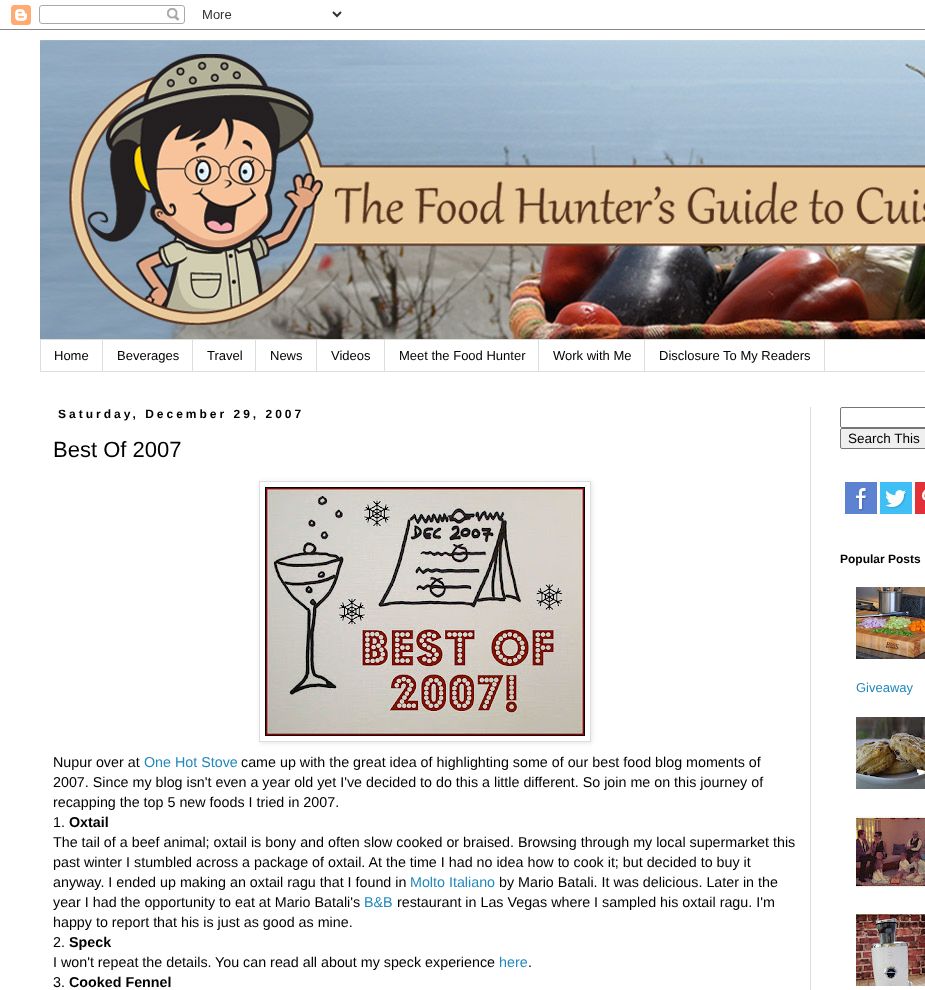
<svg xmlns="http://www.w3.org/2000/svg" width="925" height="990">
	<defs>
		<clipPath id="clip1"><path d="M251 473H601V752H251ZM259 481H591V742H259Z" clip-rule="evenodd" /></clipPath>
	</defs>
	<rect width="100%" height="100%" fill="#FFFFFF" />
	<image x="0" y="5" width="925" height="25" href="assets/img1.png" />
	<image x="40" y="40" width="885" height="299" href="assets/img2.png" />
	<rect x="40.5" y="339.5" width="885" height="32" fill="none" stroke="#DDDDDD" />
	<rect x="102" y="340" width="1" height="31" fill="#DDDDDD" />
	<text x="54" y="360" font-family="Liberation Sans" font-size="13" fill="#000000">Home</text>
	<rect x="192" y="340" width="1" height="31" fill="#DDDDDD" />
	<text x="117" y="360" font-family="Liberation Sans" font-size="13" fill="#000000">Beverages</text>
	<rect x="255" y="340" width="1" height="31" fill="#DDDDDD" />
	<text x="207" y="360" font-family="Liberation Sans" font-size="13" fill="#000000">Travel</text>
	<rect x="316" y="340" width="1" height="31" fill="#DDDDDD" />
	<text x="270" y="360" font-family="Liberation Sans" font-size="13" fill="#000000">News</text>
	<rect x="384" y="340" width="1" height="31" fill="#DDDDDD" />
	<text x="331" y="360" font-family="Liberation Sans" font-size="13" fill="#000000">Videos</text>
	<rect x="538" y="340" width="1" height="31" fill="#DDDDDD" />
	<text x="399" y="360" font-family="Liberation Sans" font-size="13" fill="#000000">Meet the Food Hunter</text>
	<rect x="644" y="340" width="1" height="31" fill="#DDDDDD" />
	<text x="553" y="360" font-family="Liberation Sans" font-size="13" fill="#000000">Work with Me</text>
	<rect x="824" y="340" width="1" height="31" fill="#DDDDDD" />
	<text x="659" y="360" font-family="Liberation Sans" font-size="13" fill="#000000">Disclosure To My Readers</text>
	<rect x="810" y="407" width="1" height="583" fill="#DDDDDD" />
	<text x="58" y="418" font-family="Liberation Sans" font-size="12" font-weight="700" letter-spacing="3" fill="#000000">Saturday, December 29, 2007</text>
	<text x="53" y="457" font-family="Liberation Sans" font-size="22" fill="#000000">Best Of 2007</text>
	<g clip-path="url(#clip1)">
		<rect x="260" y="482" width="332" height="261" fill="#000000" fill-opacity="0.1" filter="blur(2.5px)" />
	</g>
	<rect x="259.5" y="481.5" width="331" height="260" fill="none" stroke="#DDDDDD" />
	<image x="265" y="487" width="320" height="249" href="assets/img3.png" />
	<text x="53" y="767" font-family="Liberation Sans" font-size="14.3" fill="#000000">Nupur over at</text>
	<text x="144" y="767" font-family="Liberation Sans" font-size="14.3" fill="#2288BB">One Hot Stove</text>
	<g font-family="Liberation Sans" font-size="14.3" fill="#000000">
		<text x="241" y="767">came up with the great idea of highlighting some of our best food blog moments of</text>
		<text x="53" y="787">2007. Since my blog isn't even a year old yet I've decided to do this a little different. So join me on this journey of</text>
		<text x="53" y="807">recapping the top 5 new foods I tried in 2007.</text>
		<text x="53" y="827">1.</text>
	</g>
	<text x="69" y="827" font-family="Liberation Sans" font-size="14.3" font-weight="700" fill="#000000">Oxtail</text>
	<g font-family="Liberation Sans" font-size="14.3" fill="#000000">
		<text x="53" y="847">The tail of a beef animal; oxtail is bony and often slow cooked or braised. Browsing through my local supermarket this</text>
		<text x="53" y="867">past winter I stumbled across a package of oxtail. At the time I had no idea how to cook it; but decided to buy it</text>
		<text x="53" y="887">anyway. I ended up making an oxtail ragu that I found in</text>
	</g>
	<text x="410" y="887" font-family="Liberation Sans" font-size="14.3" fill="#2288BB">Molto Italiano</text>
	<g font-family="Liberation Sans" font-size="14.3" fill="#000000">
		<text x="499" y="887">by Mario Batali. It was delicious. Later in the</text>
		<text x="53" y="907">year I had the opportunity to eat at Mario Batali's</text>
	</g>
	<text x="364" y="907" font-family="Liberation Sans" font-size="14.3" fill="#2288BB">B&amp;B</text>
	<g font-family="Liberation Sans" font-size="14.3" fill="#000000">
		<text x="397" y="907">restaurant in Las Vegas where I sampled his oxtail ragu. I'm</text>
		<text x="53" y="927">happy to report that his is just as good as mine.</text>
		<text x="53" y="947">2.</text>
	</g>
	<text x="69" y="947" font-family="Liberation Sans" font-size="14.3" font-weight="700" fill="#000000">Speck</text>
	<g font-family="Liberation Sans" font-size="14.3" fill="#000000">
		<text x="53" y="967">I won't repeat the details.</text>
		<text x="215" y="967">You can read all about my speck experience</text>
	</g>
	<text x="499" y="967" font-family="Liberation Sans" font-size="14.3" fill="#2288BB">here</text>
	<g font-family="Liberation Sans" font-size="14.3" fill="#000000">
		<text x="528" y="967">.</text>
		<text x="53" y="987">3.</text>
	</g>
	<text x="69" y="987" font-family="Liberation Sans" font-size="14.3" font-weight="700" fill="#000000">Cooked Fennel</text>
	<rect x="840.5" y="407.5" width="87" height="20" rx="1.5" fill="none" stroke="#767676" />
	<rect x="840.5" y="428.5" width="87" height="20" rx="1.5" fill="#EFEFEF" stroke="#767676" />
	<text x="848" y="443" font-family="Liberation Sans" font-size="13.5" fill="#000000">Search This</text>
	<image x="840" y="479" width="85" height="38" href="assets/img4.png" />
	<text x="840" y="563" font-family="Liberation Sans" font-size="12" font-weight="700" fill="#000000">Popular Posts</text>
	<image x="856" y="587" width="69" height="72" href="assets/img5.png" />
	<text x="856" y="692" font-family="Liberation Sans" font-size="13" fill="#2288BB">Giveaway</text>
	<image x="856" y="717" width="69" height="72" href="assets/img6.png" />
	<image x="856" y="816" width="69" height="72" href="assets/img7.png" />
	<image x="856" y="914" width="69" height="72" href="assets/img8.png" />
</svg>
